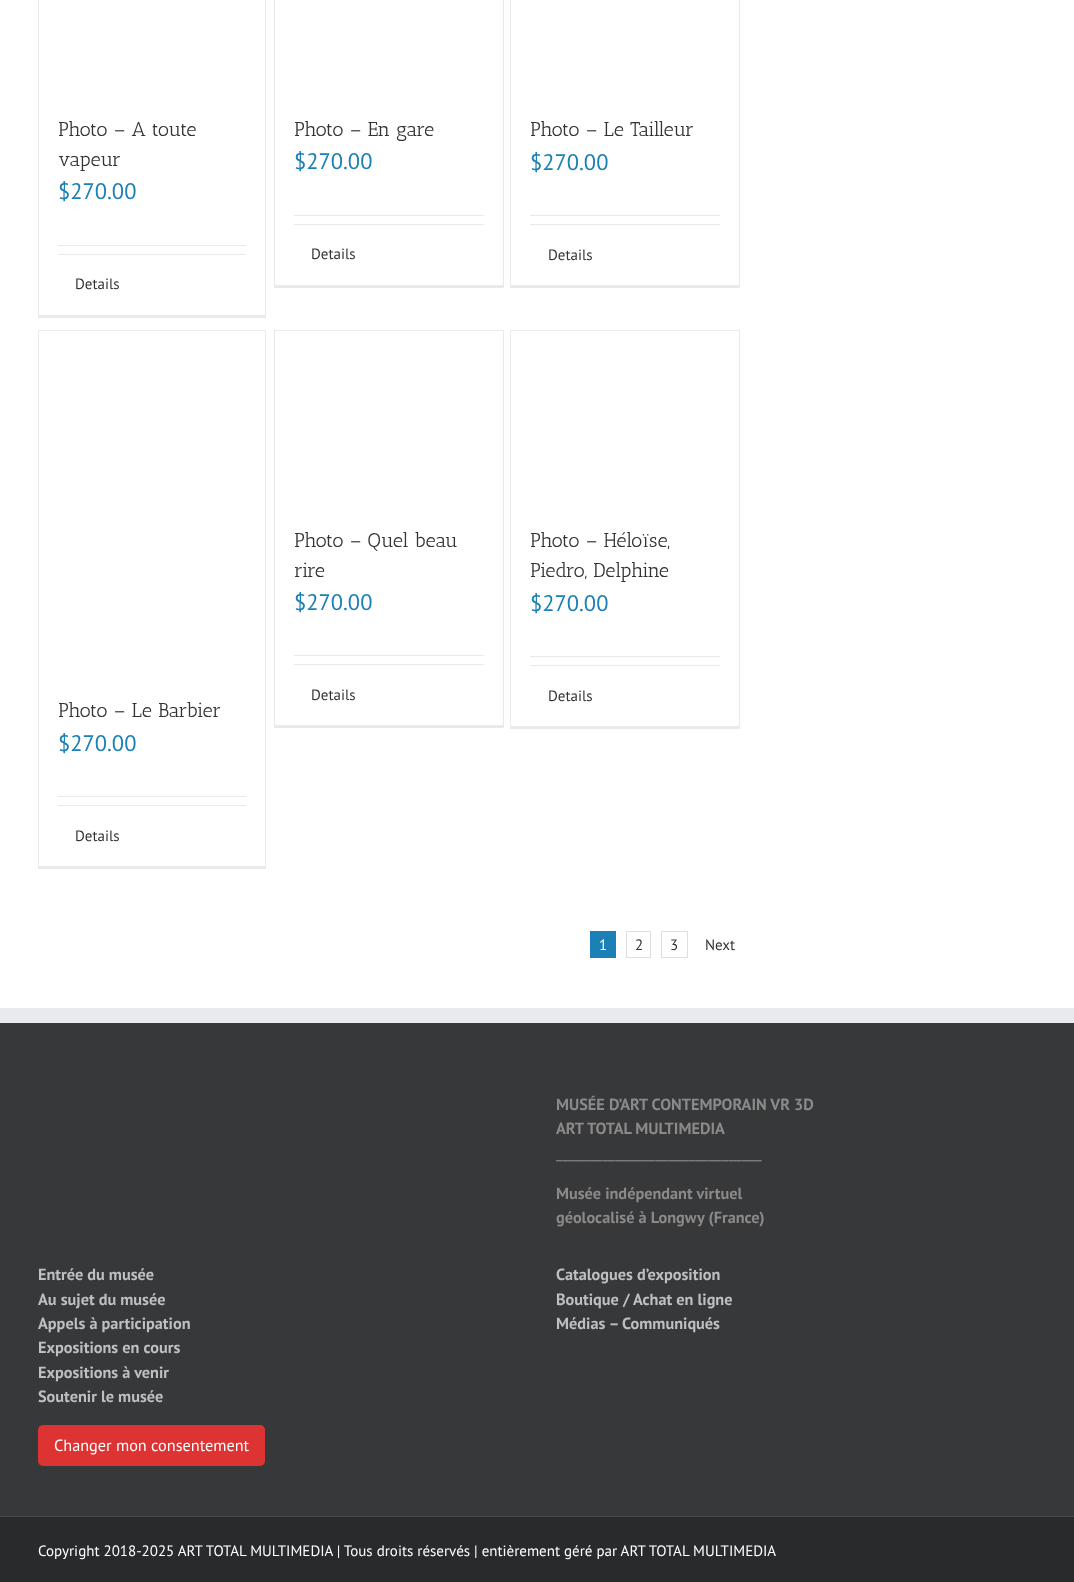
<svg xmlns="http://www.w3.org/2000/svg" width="1074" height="1582">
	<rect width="100%" height="100%" fill="#FFFFFF" />
	<rect x="265" y="0" width="1" height="318" fill="#EBEAEA" />
	<rect x="38" y="315" width="228" height="3" fill="#EBEAEA" />
	<rect x="38" y="0" width="1" height="318" fill="#EBEAEA" />
	<g font-family="Antic Slab" font-size="20" fill="#333333">
		<text x="58" y="136">Photo – A toute</text>
		<text x="58" y="166">vapeur</text>
	</g>
	<text x="58" y="199" font-family="PT Sans" font-size="22.5" fill="#1A80B6">$270.00</text>
	<rect x="58" y="245" width="188" height="1" fill="#EBEAEA" />
	<rect x="58" y="254" width="188" height="1" fill="#EBEAEA" />
	<text x="75" y="289" font-family="PT Sans" font-size="15" fill="#333333">Details</text>
	<rect x="503" y="0" width="1" height="288" fill="#EBEAEA" />
	<rect x="274" y="285" width="230" height="3" fill="#EBEAEA" />
	<rect x="274" y="0" width="1" height="288" fill="#EBEAEA" />
	<text x="294" y="136" font-family="Antic Slab" font-size="20" fill="#333333">Photo – En gare</text>
	<text x="294" y="169" font-family="PT Sans" font-size="22.5" fill="#1A80B6">$270.00</text>
	<rect x="294" y="215" width="190" height="1" fill="#EBEAEA" />
	<rect x="294" y="224" width="190" height="1" fill="#EBEAEA" />
	<text x="311" y="259" font-family="PT Sans" font-size="15" fill="#333333">Details</text>
	<rect x="739" y="0" width="1" height="288" fill="#EBEAEA" />
	<rect x="510" y="285" width="230" height="3" fill="#EBEAEA" />
	<rect x="510" y="0" width="1" height="288" fill="#EBEAEA" />
	<text x="530" y="136" font-family="Antic Slab" font-size="20" fill="#333333">Photo – Le Tailleur</text>
	<text x="530" y="170" font-family="PT Sans" font-size="22.5" fill="#1A80B6">$270.00</text>
	<rect x="530" y="215" width="190" height="1" fill="#EBEAEA" />
	<rect x="530" y="224" width="190" height="1" fill="#EBEAEA" />
	<text x="548" y="260" font-family="PT Sans" font-size="15" fill="#333333">Details</text>
	<rect x="274" y="330" width="230" height="1" fill="#EBEAEA" />
	<rect x="503" y="330" width="1" height="398" fill="#EBEAEA" />
	<rect x="274" y="725" width="230" height="3" fill="#EBEAEA" />
	<rect x="274" y="330" width="1" height="398" fill="#EBEAEA" />
	<g font-family="Antic Slab" font-size="20" fill="#333333">
		<text x="294" y="547">Photo – Quel beau</text>
		<text x="294" y="577">rire</text>
	</g>
	<text x="294" y="610" font-family="PT Sans" font-size="22.5" fill="#1A80B6">$270.00</text>
	<rect x="294" y="655" width="190" height="1" fill="#EBEAEA" />
	<rect x="294" y="664" width="190" height="1" fill="#EBEAEA" />
	<text x="311" y="700" font-family="PT Sans" font-size="15" fill="#333333">Details</text>
	<rect x="510" y="330" width="230" height="1" fill="#EBEAEA" />
	<rect x="739" y="330" width="1" height="399" fill="#EBEAEA" />
	<rect x="510" y="726" width="230" height="3" fill="#EBEAEA" />
	<rect x="510" y="330" width="1" height="399" fill="#EBEAEA" />
	<g font-family="Antic Slab" font-size="20" fill="#333333">
		<text x="530" y="547">Photo – Héloïse,</text>
		<text x="530" y="577">Piedro, Delphine</text>
	</g>
	<text x="530" y="611" font-family="PT Sans" font-size="22.5" fill="#1A80B6">$270.00</text>
	<rect x="530" y="656" width="190" height="1" fill="#EBEAEA" />
	<rect x="530" y="665" width="190" height="1" fill="#EBEAEA" />
	<text x="548" y="701" font-family="PT Sans" font-size="15" fill="#333333">Details</text>
	<rect x="38" y="330" width="228" height="1" fill="#EBEAEA" />
	<rect x="265" y="330" width="1" height="539" fill="#EBEAEA" />
	<rect x="38" y="866" width="228" height="3" fill="#EBEAEA" />
	<rect x="38" y="330" width="1" height="539" fill="#EBEAEA" />
	<text x="58" y="717" font-family="Antic Slab" font-size="20" fill="#333333">Photo – Le Barbier</text>
	<text x="58" y="751" font-family="PT Sans" font-size="22.5" fill="#1A80B6">$270.00</text>
	<rect x="58" y="796" width="188" height="1" fill="#EBEAEA" />
	<rect x="58" y="805" width="188" height="1" fill="#EBEAEA" />
	<text x="75" y="841" font-family="PT Sans" font-size="15" fill="#333333">Details</text>
	<rect x="590" y="931" width="26" height="27" fill="#1A80B6" />
	<text x="599" y="950" font-family="PT Sans" font-size="15" fill="#FFFFFF">1</text>
	<rect x="626.5" y="931.5" width="24" height="26" fill="none" stroke="#E0DEDE" />
	<text x="635" y="950" font-family="PT Sans" font-size="15" fill="#333333">2</text>
	<rect x="661.5" y="931.5" width="26" height="26" fill="none" stroke="#E0DEDE" />
	<g font-family="PT Sans" font-size="15" fill="#333333">
		<text x="670" y="950">3</text>
		<text x="705" y="950">Next</text>
	</g>
	<rect x="0" y="1023" width="1074" height="493" fill="#363839" />
	<rect x="0" y="1008" width="1074" height="15" fill="#E9EAEE" />
	<g font-family="PT Sans" font-size="16.25" font-weight="700" fill="#8C8989">
		<text x="556" y="1110">MUSÉE D’ART CONTEMPORAIN VR 3D</text>
		<text x="556" y="1134">ART TOTAL MULTIMEDIA</text>
	</g>
	<text x="556" y="1158" font-family="PT Sans" font-size="16.25" fill="#8C8989">_______________________________</text>
	<g font-family="PT Sans" font-size="16.25" font-weight="700" fill="#8C8989">
		<text x="556" y="1199">Musée indépendant virtuel</text>
		<text x="556" y="1223">géolocalisé à Longwy (France)</text>
	</g>
	<g font-family="PT Sans" font-size="16.25" font-weight="700" fill="#BFBFBF">
		<text x="38" y="1280">Entrée du musée</text>
		<text x="38" y="1305">Au sujet du musée</text>
		<text x="38" y="1329">Appels à participation</text>
		<text x="38" y="1353">Expositions en cours</text>
		<text x="38" y="1378">Expositions à venir</text>
		<text x="38" y="1402">Soutenir le musée</text>
	</g>
	<rect x="38" y="1425" width="227" height="41" rx="5" fill="#DD3333" />
	<text x="54" y="1451" font-family="PT Sans" font-size="16.25" fill="#FFFFFF">Changer mon consentement</text>
	<g font-family="PT Sans" font-size="16.25" font-weight="700" fill="#BFBFBF">
		<text x="556" y="1280">Catalogues d’exposition</text>
		<text x="556" y="1305">Boutique / Achat en ligne</text>
		<text x="556" y="1329">Médias – Communiqués</text>
	</g>
	<rect x="0" y="1517" width="1074" height="65" fill="#282A2B" />
	<rect x="0" y="1516" width="1074" height="1" fill="#4B4C4D" />
	<text x="38" y="1556" font-family="PT Sans" font-size="15" fill="#FFFFFF">Copyright 2018-2025 ART TOTAL MULTIMEDIA | Tous droits réservés | entièrement géré par ART TOTAL MULTIMEDIA</text>
</svg>
